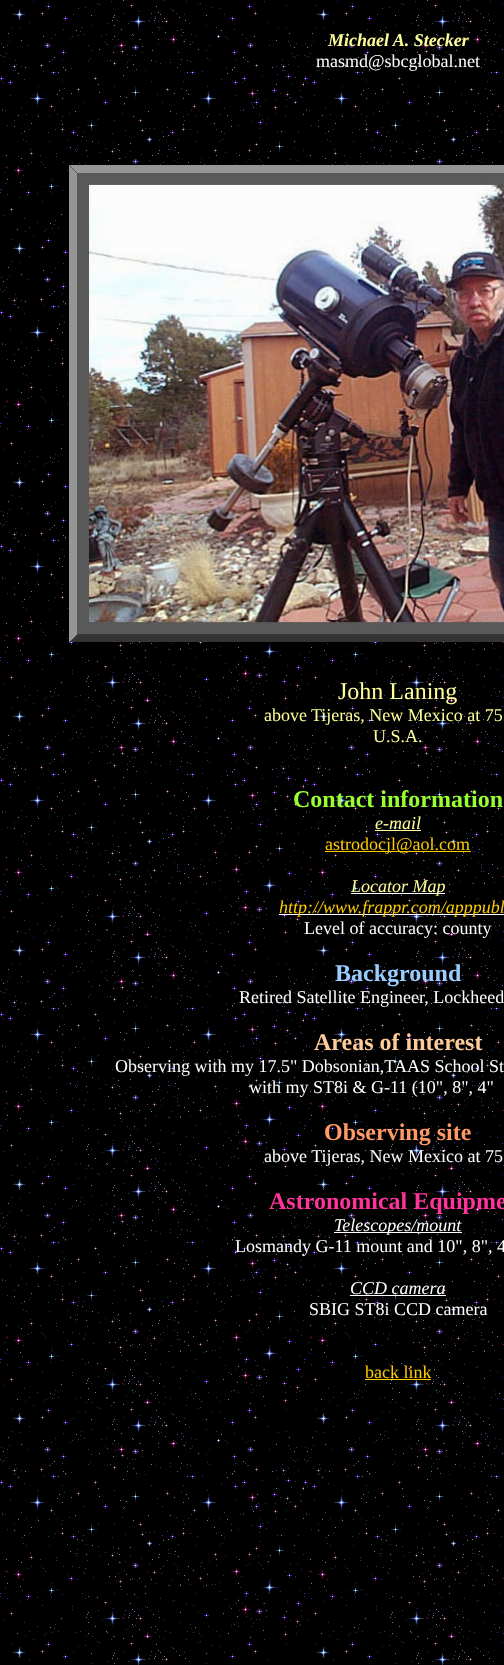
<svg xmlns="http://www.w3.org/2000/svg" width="504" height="1665">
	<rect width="100%" height="100%" fill="#FFFFFF" />
	<image x="0" y="0" width="504" height="1665" href="assets/img1.png" />
	<text x="328" y="46" font-family="Liberation Serif" font-size="18" font-weight="700" font-style="italic" fill="#FFFF99">Michael A. Stecker</text>
	<text x="316" y="67" font-family="Liberation Serif" font-size="18" fill="#FFFFFF">masmd@sbcglobal.net</text>
	<image x="69" y="165" width="435" height="477" href="assets/img2.png" />
	<text x="338" y="699" font-family="Liberation Serif" font-size="24" fill="#FFFF99">John Laning</text>
	<g font-family="Liberation Serif" font-size="18" fill="#FFFF99">
		<text x="264" y="721">above</text>
		<text x="311" y="721">Tijeras, New Mexico at 75</text>
		<text x="373" y="742">U.S.A.</text>
	</g>
	<text x="293" y="807" font-family="Liberation Serif" font-size="24" font-weight="700" fill="#99FF33">Contact information</text>
	<text x="375" y="829" font-family="Liberation Serif" font-size="18" font-style="italic" fill="#FFFF99">e-mail</text>
	<rect x="375" y="830" width="46" height="1" fill="#FFFF99" />
	<rect x="325" y="851" width="146" height="1" fill="#FFCC00" />
	<text x="325" y="850" font-family="Liberation Serif" font-size="18" fill="#FFCC00">astrodocjl@aol.com</text>
	<rect x="351" y="893" width="94" height="1" fill="#FFFFFF" />
	<text x="351" y="892" font-family="Liberation Serif" font-size="18" font-style="italic" fill="#FFFF99">Locator Map</text>
	<rect x="279" y="914" width="225" height="1" fill="#FFFFFF" />
	<text x="279" y="913" font-family="Liberation Serif" font-size="18" font-style="italic" fill="#FFCC00">http://www.frappr.com/apppubl</text>
	<text x="304" y="934" font-family="Liberation Serif" font-size="18" fill="#FFFFFF">Level of accuracy: county</text>
	<text x="335" y="981" font-family="Liberation Serif" font-size="24" font-weight="700" fill="#99CCFF">Background</text>
	<text x="239" y="1003" font-family="Liberation Serif" font-size="18" fill="#FFFFFF">Retired Satellite Engineer, Lockheed</text>
	<text x="314" y="1050" font-family="Liberation Serif" font-size="24" font-weight="700" fill="#FFCC99">Areas of interest</text>
	<g font-family="Liberation Serif" font-size="18" fill="#FFFFFF">
		<text x="115" y="1072">Observing with my 17.5" Dobsonian,TAAS School St</text>
		<text x="249" y="1093">with my ST8i &amp; G-11 (10", 8", 4"</text>
	</g>
	<text x="324" y="1140" font-family="Liberation Serif" font-size="24" font-weight="700" fill="#FF9966">Observing site</text>
	<text x="264" y="1162" font-family="Liberation Serif" font-size="18" fill="#FFFFFF">above Tijeras, New Mexico at 75</text>
	<text x="269" y="1209" font-family="Liberation Serif" font-size="24" font-weight="700" fill="#FF3399">Astronomical Equipme</text>
	<rect x="334" y="1232" width="128" height="1" fill="#FFFFFF" />
	<text x="334" y="1231" font-family="Liberation Serif" font-size="18" font-style="italic" fill="#FFFFFF">Telescopes/mount</text>
	<text x="235" y="1252" font-family="Liberation Serif" font-size="18" fill="#FFFFFF">Losmandy G-11 mount and 10", 8", 4</text>
	<text x="350" y="1294" font-family="Liberation Serif" font-size="18" font-style="italic" fill="#FFFFFF">CCD camera</text>
	<rect x="350" y="1295" width="96" height="1" fill="#FFFFFF" />
	<text x="309" y="1315" font-family="Liberation Serif" font-size="18" fill="#FFFFFF">SBIG ST8i CCD camera</text>
	<text x="365" y="1378" font-family="Liberation Serif" font-size="18" fill="#FFCC00">back link</text>
	<rect x="365" y="1379" width="66" height="1" fill="#FFCC00" />
</svg>
